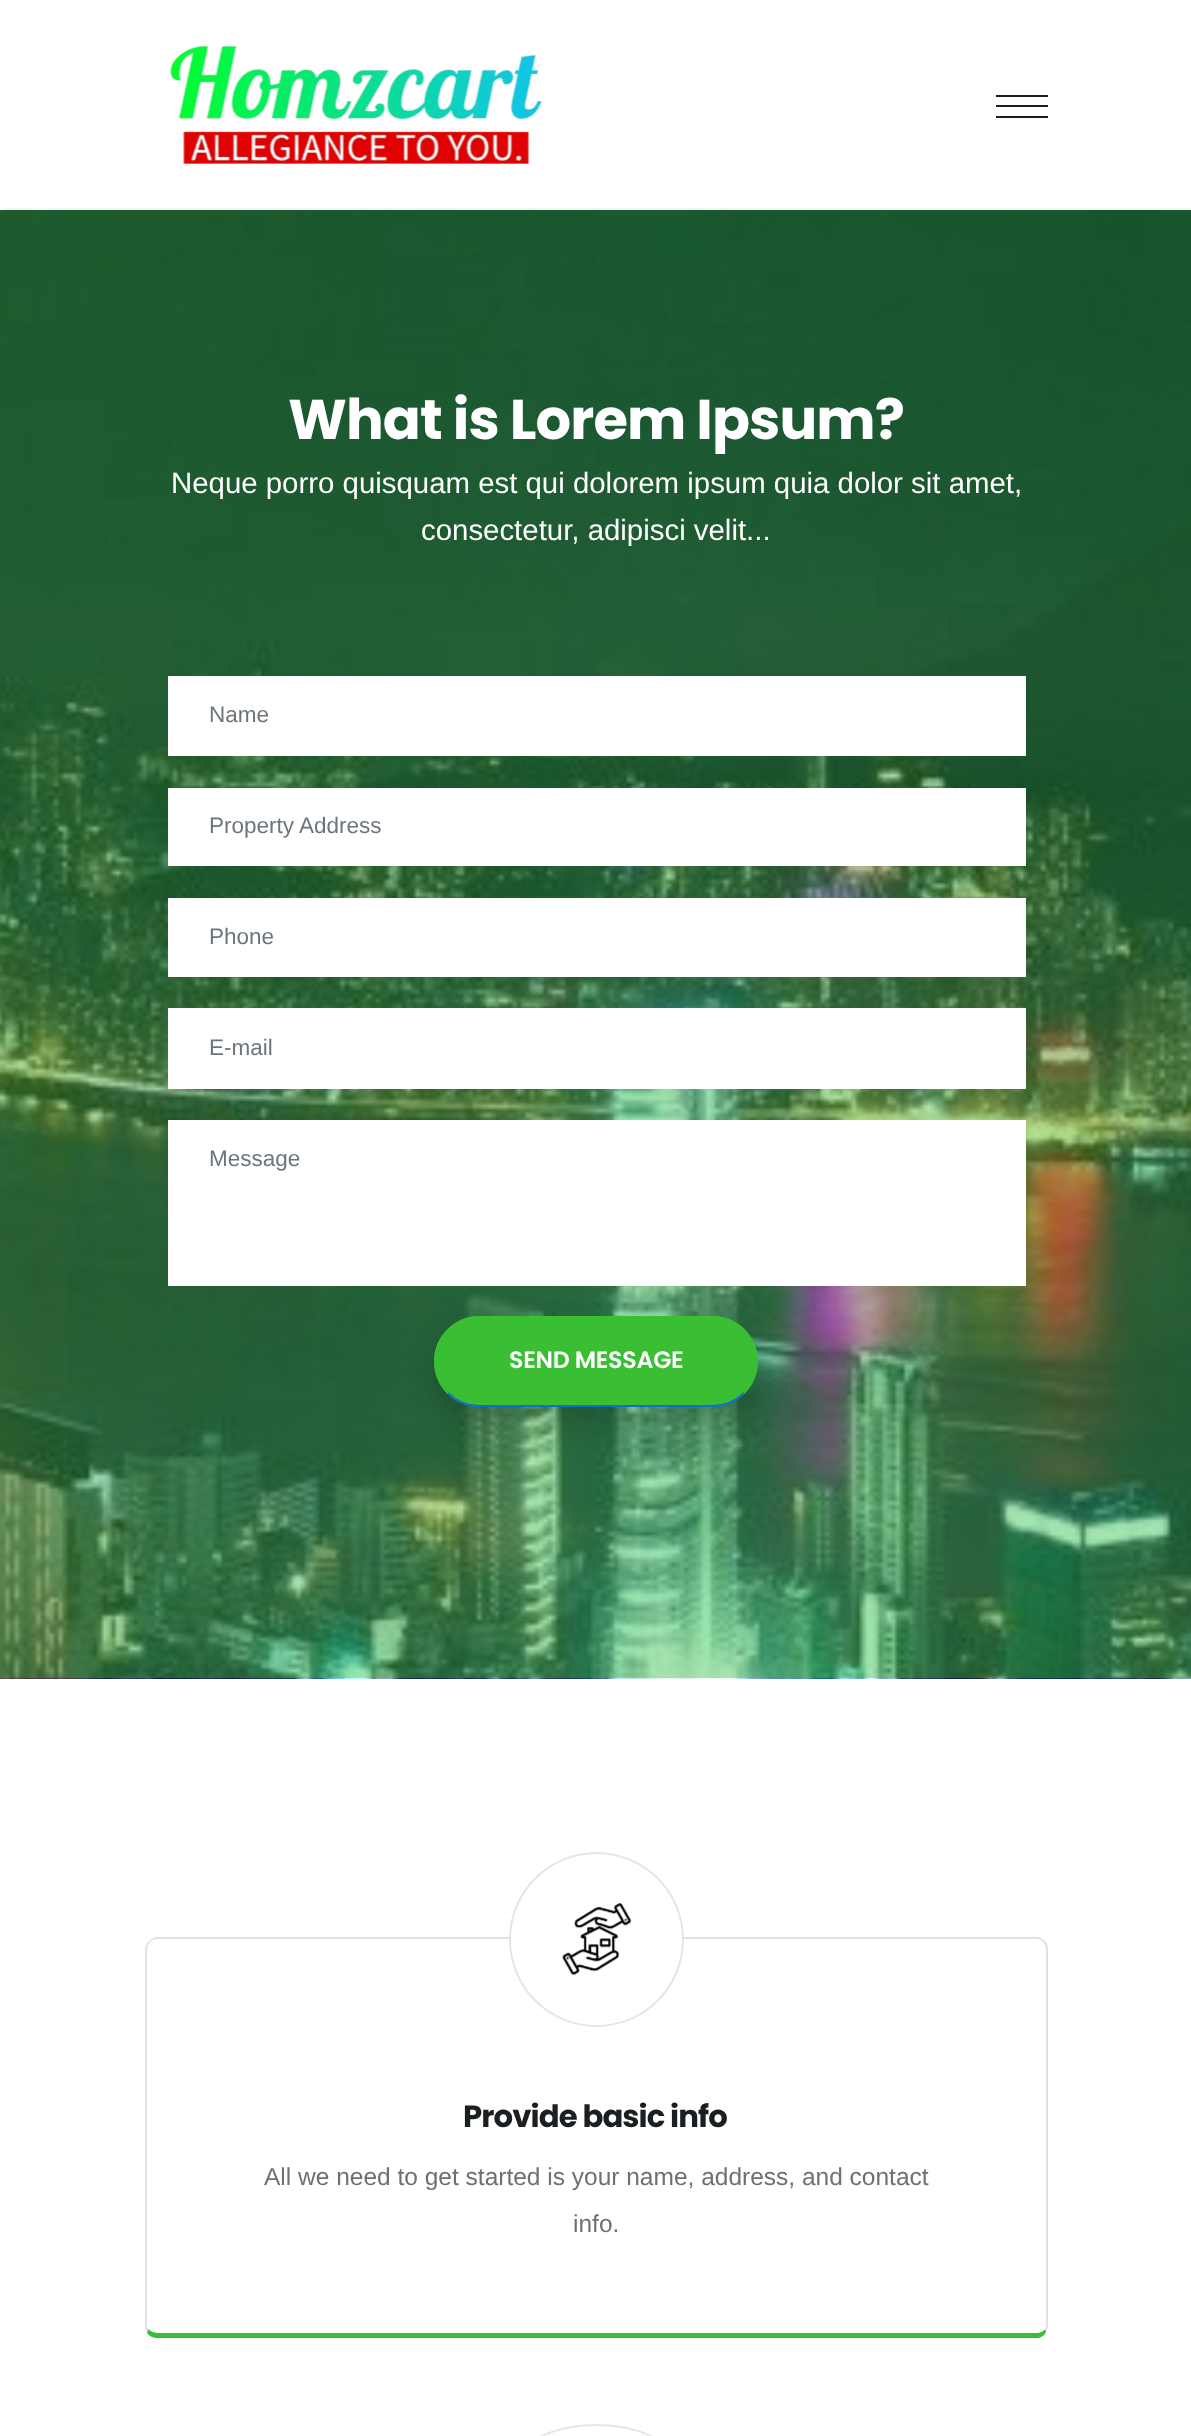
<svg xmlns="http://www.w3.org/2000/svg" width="1191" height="2436">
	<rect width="100%" height="100%" fill="#FFFFFF" />
	<image x="169" y="46" width="373" height="118" href="assets/img1.png" />
	<rect x="996" y="95" width="52" height="2" fill="#1C1F21" />
	<rect x="996" y="105" width="52" height="2" fill="#1C1F21" />
	<rect x="996" y="116" width="52" height="2" fill="#1C1F21" />
	<rect x="2" y="208" width="1189" height="2" fill="#F5F5F5" />
	<image x="0" y="210" width="1191" height="1469" href="assets/img2.png" />
	<text x="288" y="439" font-family="Poppins" font-size="56" font-weight="700" letter-spacing="-0.9" fill="#FFFFFF">What is Lorem Ipsum?</text>
	<g font-family="Liberation Sans" font-size="29.4" fill="#FFFFFF">
		<text x="171" y="493">Neque porro quisquam est qui dolorem ipsum quia dolor sit amet,</text>
		<text x="421" y="540">consectetur, adipisci velit...</text>
	</g>
	<rect x="168" y="676" width="858" height="80" fill="#FFFFFF" />
	<text x="209" y="722" font-family="Liberation Sans" font-size="22.5" fill="#6C757D">Name</text>
	<rect x="168" y="788" width="858" height="78" fill="#FFFFFF" />
	<text x="209" y="833" font-family="Liberation Sans" font-size="22.5" fill="#6C757D">Property Address</text>
	<rect x="168" y="898" width="858" height="79" fill="#FFFFFF" />
	<text x="209" y="944" font-family="Liberation Sans" font-size="22.5" fill="#6C757D">Phone</text>
	<rect x="168" y="1008" width="858" height="81" fill="#FFFFFF" />
	<text x="209" y="1055" font-family="Liberation Sans" font-size="22.5" fill="#6C757D">E-mail</text>
	<rect x="168" y="1120" width="858" height="166" fill="#FFFFFF" />
	<text x="209" y="1166" font-family="Liberation Sans" font-size="22.5" fill="#6C757D">Message</text>
	<rect x="434" y="1330" width="324" height="91" rx="45.5" fill="#000000" fill-opacity="0.15" filter="blur(14px)" />
	<rect x="434" y="1316" width="324" height="91" rx="45.5" fill="#3ABE34" />
	<path d="M744 1393C735.5 1401.5 724 1406 712 1406H479.5C467.5 1406 456.5 1401.5 448 1393" fill="none" stroke="#116ECC" stroke-width="1.8" />
	<path d="M448 1393C439.5 1384.5 435 1373.5 435 1361.5C435 1349.5 439.5 1338.5 448 1330C456.5 1321.5 467.5 1317 479.5 1317H712C724 1317 735.5 1321.5 744 1330C752 1338.5 757 1349.5 757 1361.5C757 1373.5 752 1384.5 744 1393" fill="none" stroke="#3ABE34" stroke-width="1.8" />
	<text x="509" y="1368" font-family="Poppins" font-size="23.75" font-weight="600" letter-spacing="-0.3" fill="#FFFFFF">SEND MESSAGE</text>
	<path d="M158 1939C155 1939 152 1940 150 1942L149 1941C151 1939 153 1938 156 1937H1038C1041 1938 1043 1939 1045 1941L1043 1942C1042 1940 1039 1939 1036 1939Z" fill="#E1E1E1" />
	<path d="M1045 1941C1047 1943 1048 1946 1048 1950V2326C1048 2328 1047 2331 1046 2332L1045 2329L1046 2326V1950C1046 1947 1045 1944 1043 1942Z" fill="#E1E1E1" />
	<path d="M158 2338H1036C1041 2338 1044 2336 1046 2332L1045 2329C1044 2331 1040 2333 1036 2333H158C154 2333 150 2331 148 2329L147 2333C149 2336 153 2338 158 2338Z" fill="#3ABE34" />
	<path d="M145 1948C146 1945 147 1943 149 1941L150 1942C148 1944 147 1947 147 1950V2326L148 2329L147 2333L145 2328Z" fill="#E1E1E1" />
	<circle cx="596.5" cy="1939.5" r="86.5" fill="#FFFFFF" stroke="#E5E5E5" stroke-width="2" />
	<image x="562" y="1903" width="70" height="73" href="assets/img3.png" />
	<text x="463" y="2127" font-family="Poppins" font-size="30.75" font-weight="700" letter-spacing="-0.9" fill="#1C1F21">Provide basic info</text>
	<g font-family="Liberation Sans" font-size="24.5" fill="#707070">
		<text x="264" y="2185">All we need to get started is your name, address, and contact</text>
		<text x="573" y="2232">info.</text>
	</g>
	<rect x="510" y="2425" width="173" height="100" rx="86.5" fill="none" stroke="#E6E6E6" stroke-width="2" />
</svg>
